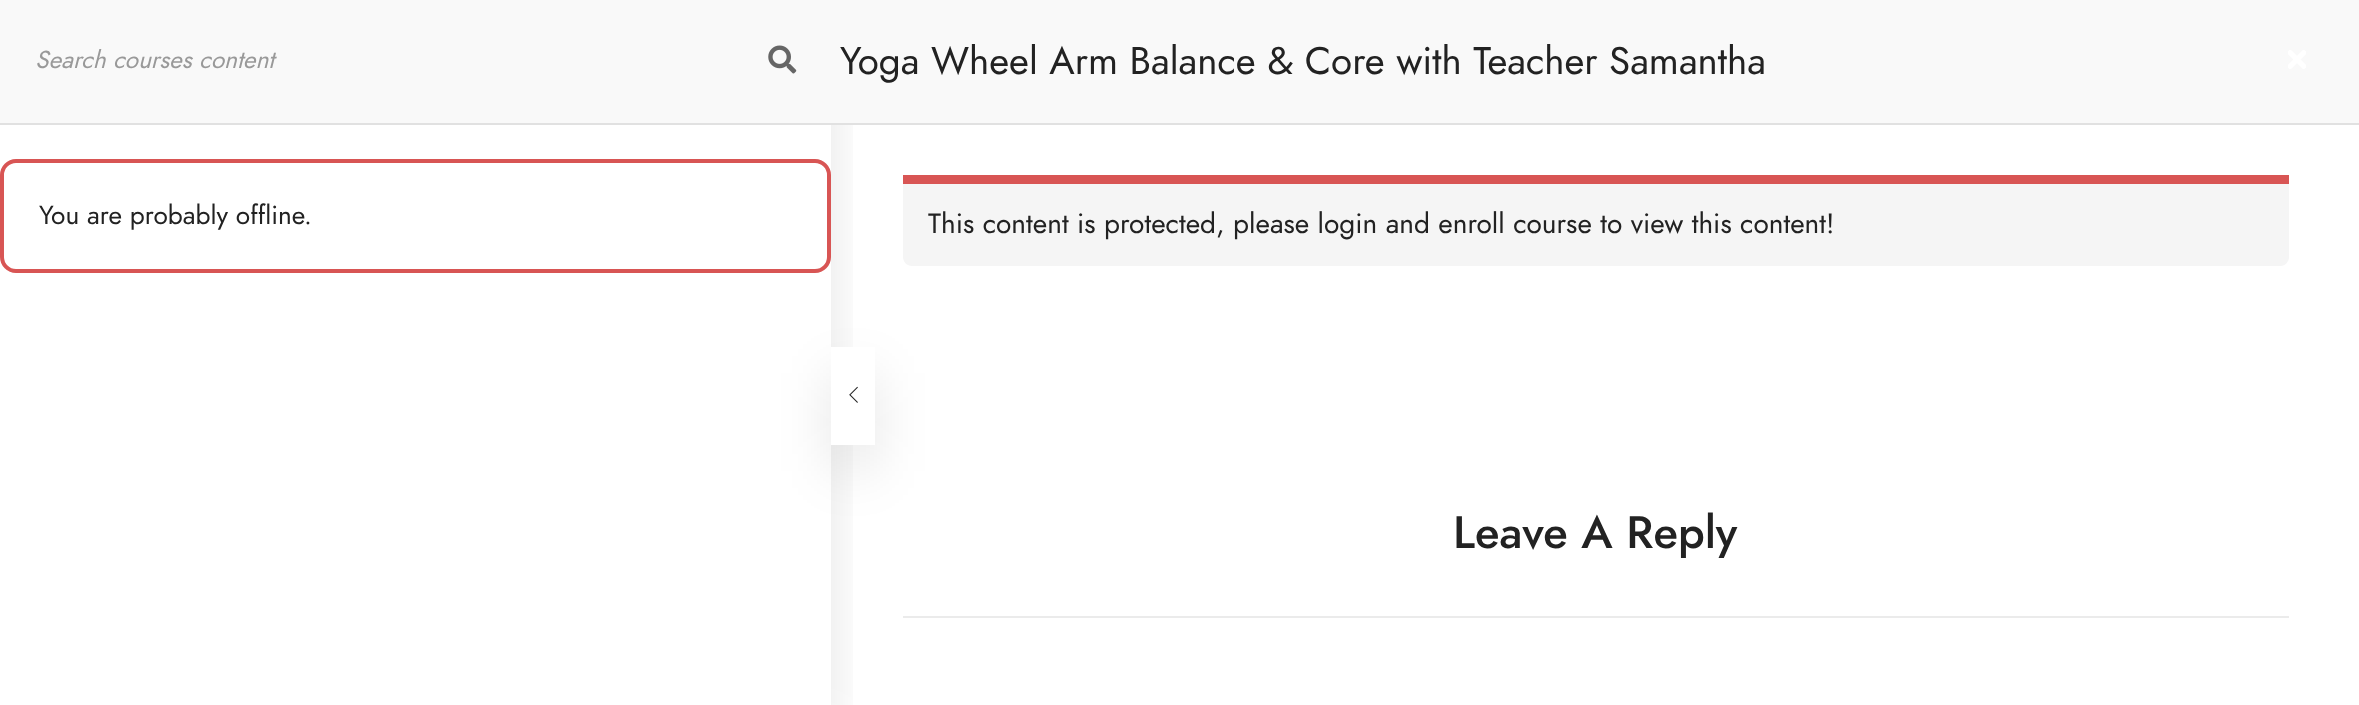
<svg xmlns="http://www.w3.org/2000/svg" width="2359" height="705">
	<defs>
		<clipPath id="clip1"><rect x="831" y="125" width="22" height="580" /></clipPath>
	</defs>
	<rect width="100%" height="100%" fill="#FFFFFF" />
	<g clip-path="url(#clip1)">
		<rect x="0" y="26" width="831" height="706" fill="#000000" fill-opacity="0.1" filter="blur(26px)" />
	</g>
	<rect x="0" y="0" width="2359" height="123" fill="#F9F9F9" />
	<rect x="0" y="123" width="2359" height="2" fill="#E1E1E1" />
	<text x="35" y="68" font-family="Jost" font-size="24.5" font-style="italic" fill="#999999">Search courses content</text>
	<image x="768" y="45" width="29" height="29" href="assets/img1.png" />
	<rect x="2" y="161" width="827" height="110" rx="14" fill="none" stroke="#D85554" stroke-width="4" />
	<text x="39" y="224" font-family="Jost" font-size="26.25" fill="#222222">You are probably offline.</text>
	<text x="840" y="74" font-family="Jost" font-size="38.5" fill="#222222">Yoga Wheel Arm Balance &amp; Core with Teacher Samantha</text>
	<image x="2288" y="50" width="18" height="19" href="assets/img2.png" />
	<rect x="831" y="373" width="44" height="98" fill="#000000" fill-opacity="0.1" filter="blur(26px)" />
	<rect x="831" y="347" width="44" height="98" fill="#FFFFFF" />
	<image x="849" y="386" width="9" height="17" href="assets/img3.png" />
	<path d="M903 175H2289V257C2289 262 2285 266 2280 266H912C907 266 903 262 903 257Z" fill="#F5F5F5" />
	<rect x="903" y="175" width="1386" height="9" fill="#D85554" />
	<text x="928" y="233" font-family="Jost" font-size="28" fill="#222222">This content is protected, please login and enroll course to view this content!</text>
	<text x="1453" y="548" font-family="Jost" font-size="45.5" font-weight="500" fill="#222222">Leave A Reply</text>
	<rect x="903" y="616" width="1386" height="2" fill="#EBEBEB" />
</svg>
